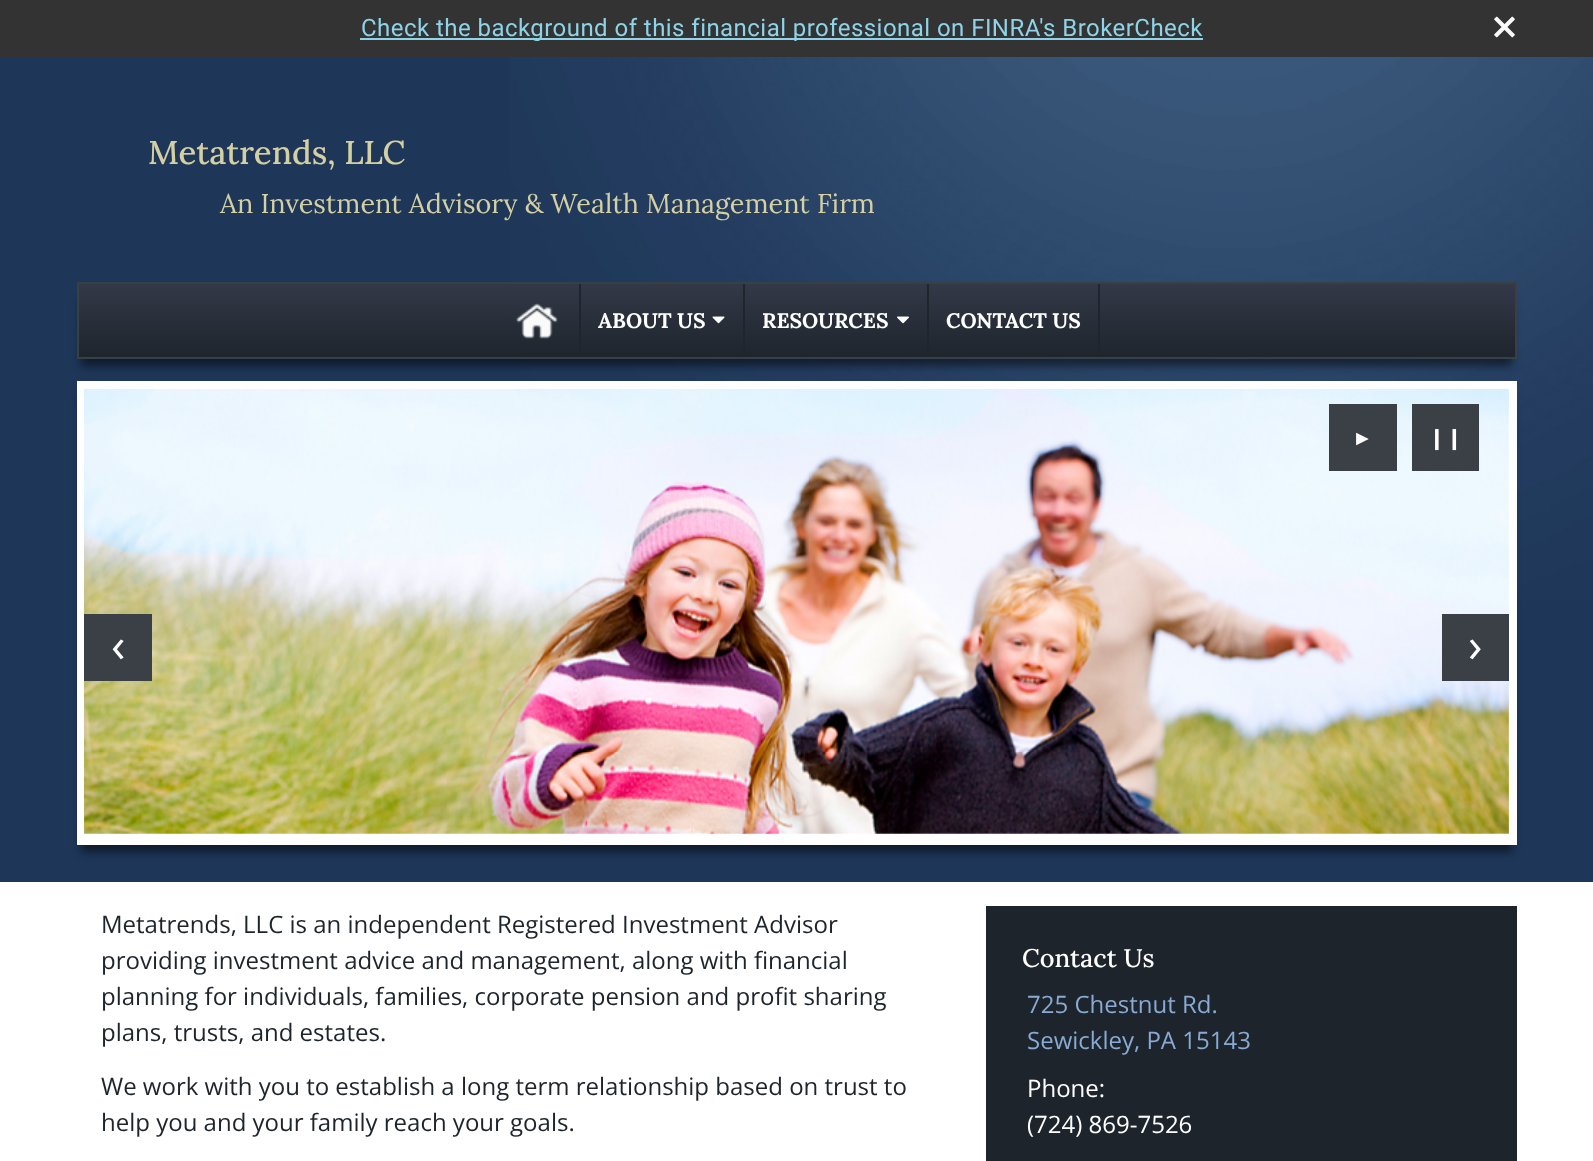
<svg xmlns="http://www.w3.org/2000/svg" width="1593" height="1161">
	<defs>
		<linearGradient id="g1" gradientUnits="userSpaceOnUse" x1="797" y1="283" x2="797" y2="357"><stop offset="0" stop-color="#333947" /><stop offset="1" stop-color="#1E252D" /></linearGradient>
	</defs>
	<rect width="100%" height="100%" fill="#1E3658" />
	<image x="509" y="57" width="1084" height="544" href="assets/img1.png" />
	<rect x="0" y="0" width="1593" height="57" fill="#333333" />
	<rect x="360" y="38" width="843" height="2" fill="#8ED3E7" />
	<text x="361" y="36" font-family="Roboto" font-size="24" letter-spacing="0.45" fill="#8ED3E7">Check the background of this financial professional on FINRA's BrokerCheck</text>
	<image x="1494" y="16" width="21" height="22" href="assets/img2.png" />
	<text x="148" y="164" font-family="Lora" font-size="33" font-weight="500" fill="#D4D0A4">Metatrends, LLC</text>
	<text x="220" y="213" font-family="Lora" font-size="27" fill="#D4D0A4">An Investment Advisory &amp; Wealth Management Firm</text>
	<rect x="81" y="299" width="1431" height="67" fill="#000000" fill-opacity="0.5" filter="blur(4px)" />
	<rect x="79" y="284" width="1436" height="73" fill="url(#g1)" />
	<rect x="78" y="283" width="1438" height="75" fill="none" stroke="#384047" stroke-width="2" />
	<image x="516" y="303" width="42" height="36" href="assets/img3.png" />
	<rect x="579" y="284" width="2" height="73" fill="#1E252D" />
	<rect x="743" y="284" width="2" height="73" fill="#1E252D" />
	<text x="598" y="328" font-family="Lora" font-size="21" font-weight="700" fill="#FFFFFF">ABOUT US</text>
	<image x="712" y="316" width="13" height="8" href="assets/img4.png" />
	<rect x="927" y="284" width="2" height="73" fill="#1E252D" />
	<text x="762" y="328" font-family="Lora" font-size="21" font-weight="700" fill="#FFFFFF">RESOURCES</text>
	<image x="897" y="316" width="12" height="8" href="assets/img5.png" />
	<rect x="1098" y="284" width="2" height="73" fill="#1E252D" />
	<text x="946" y="328" font-family="Lora" font-size="21" font-weight="700" fill="#FFFFFF">CONTACT US</text>
	<rect x="81" y="398" width="1431" height="454" fill="#000000" fill-opacity="0.5" filter="blur(4px)" />
	<rect x="77" y="381" width="1440" height="464" fill="#FFFFFF" />
	<image x="84" y="389" width="1425" height="445" href="assets/img6.png" />
	<rect x="1329" y="404" width="68" height="67" fill="#3B4046" />
	<text x="1352" y="445" font-family="Liberation Sans" font-size="21" fill="#FFFFFF">►</text>
	<rect x="1412" y="404" width="67" height="67" fill="#3B4046" />
	<text x="1428" y="445" font-family="DejaVu Sans" font-size="21" fill="#FFFFFF">❙❙</text>
	<rect x="84" y="614" width="68" height="67" fill="#3B4046" />
	<text x="111" y="662" font-family="Open Sans" font-size="48" fill="#FFFFFF">‹</text>
	<rect x="1442" y="614" width="67" height="67" fill="#3B4046" />
	<text x="1468" y="662" font-family="Open Sans" font-size="48" fill="#FFFFFF">›</text>
	<rect x="0" y="882" width="1593" height="279" fill="#FFFFFF" />
	<g font-family="Open Sans" font-size="24" fill="#1D242C">
		<text x="101" y="933">Metatrends, LLC is an independent Registered Investment Advisor</text>
		<text x="101" y="969">providing investment advice and management, along with financial</text>
		<text x="101" y="1005">planning for individuals, families, corporate pension and profit sharing</text>
		<text x="101" y="1041">plans, trusts, and estates.</text>
		<text x="101" y="1095">We work with you to establish a long term relationship based on trust to</text>
		<text x="101" y="1131">help you and your family reach your goals.</text>
	</g>
	<rect x="986" y="906" width="531" height="255" fill="#1D242C" />
	<text x="1022" y="967" font-family="Lora" font-size="25.5" font-weight="500" fill="#FFFFFF">Contact Us</text>
	<g font-family="Open Sans" font-size="24" fill="#88AAD3">
		<text x="1027" y="1013">725 Chestnut Rd.</text>
		<text x="1027" y="1049">Sewickley, PA 15143</text>
	</g>
	<g font-family="Open Sans" font-size="24" fill="#FFFFFF">
		<text x="1027" y="1097">Phone:</text>
		<text x="1027" y="1133">(724) 869-7526</text>
	</g>
</svg>
